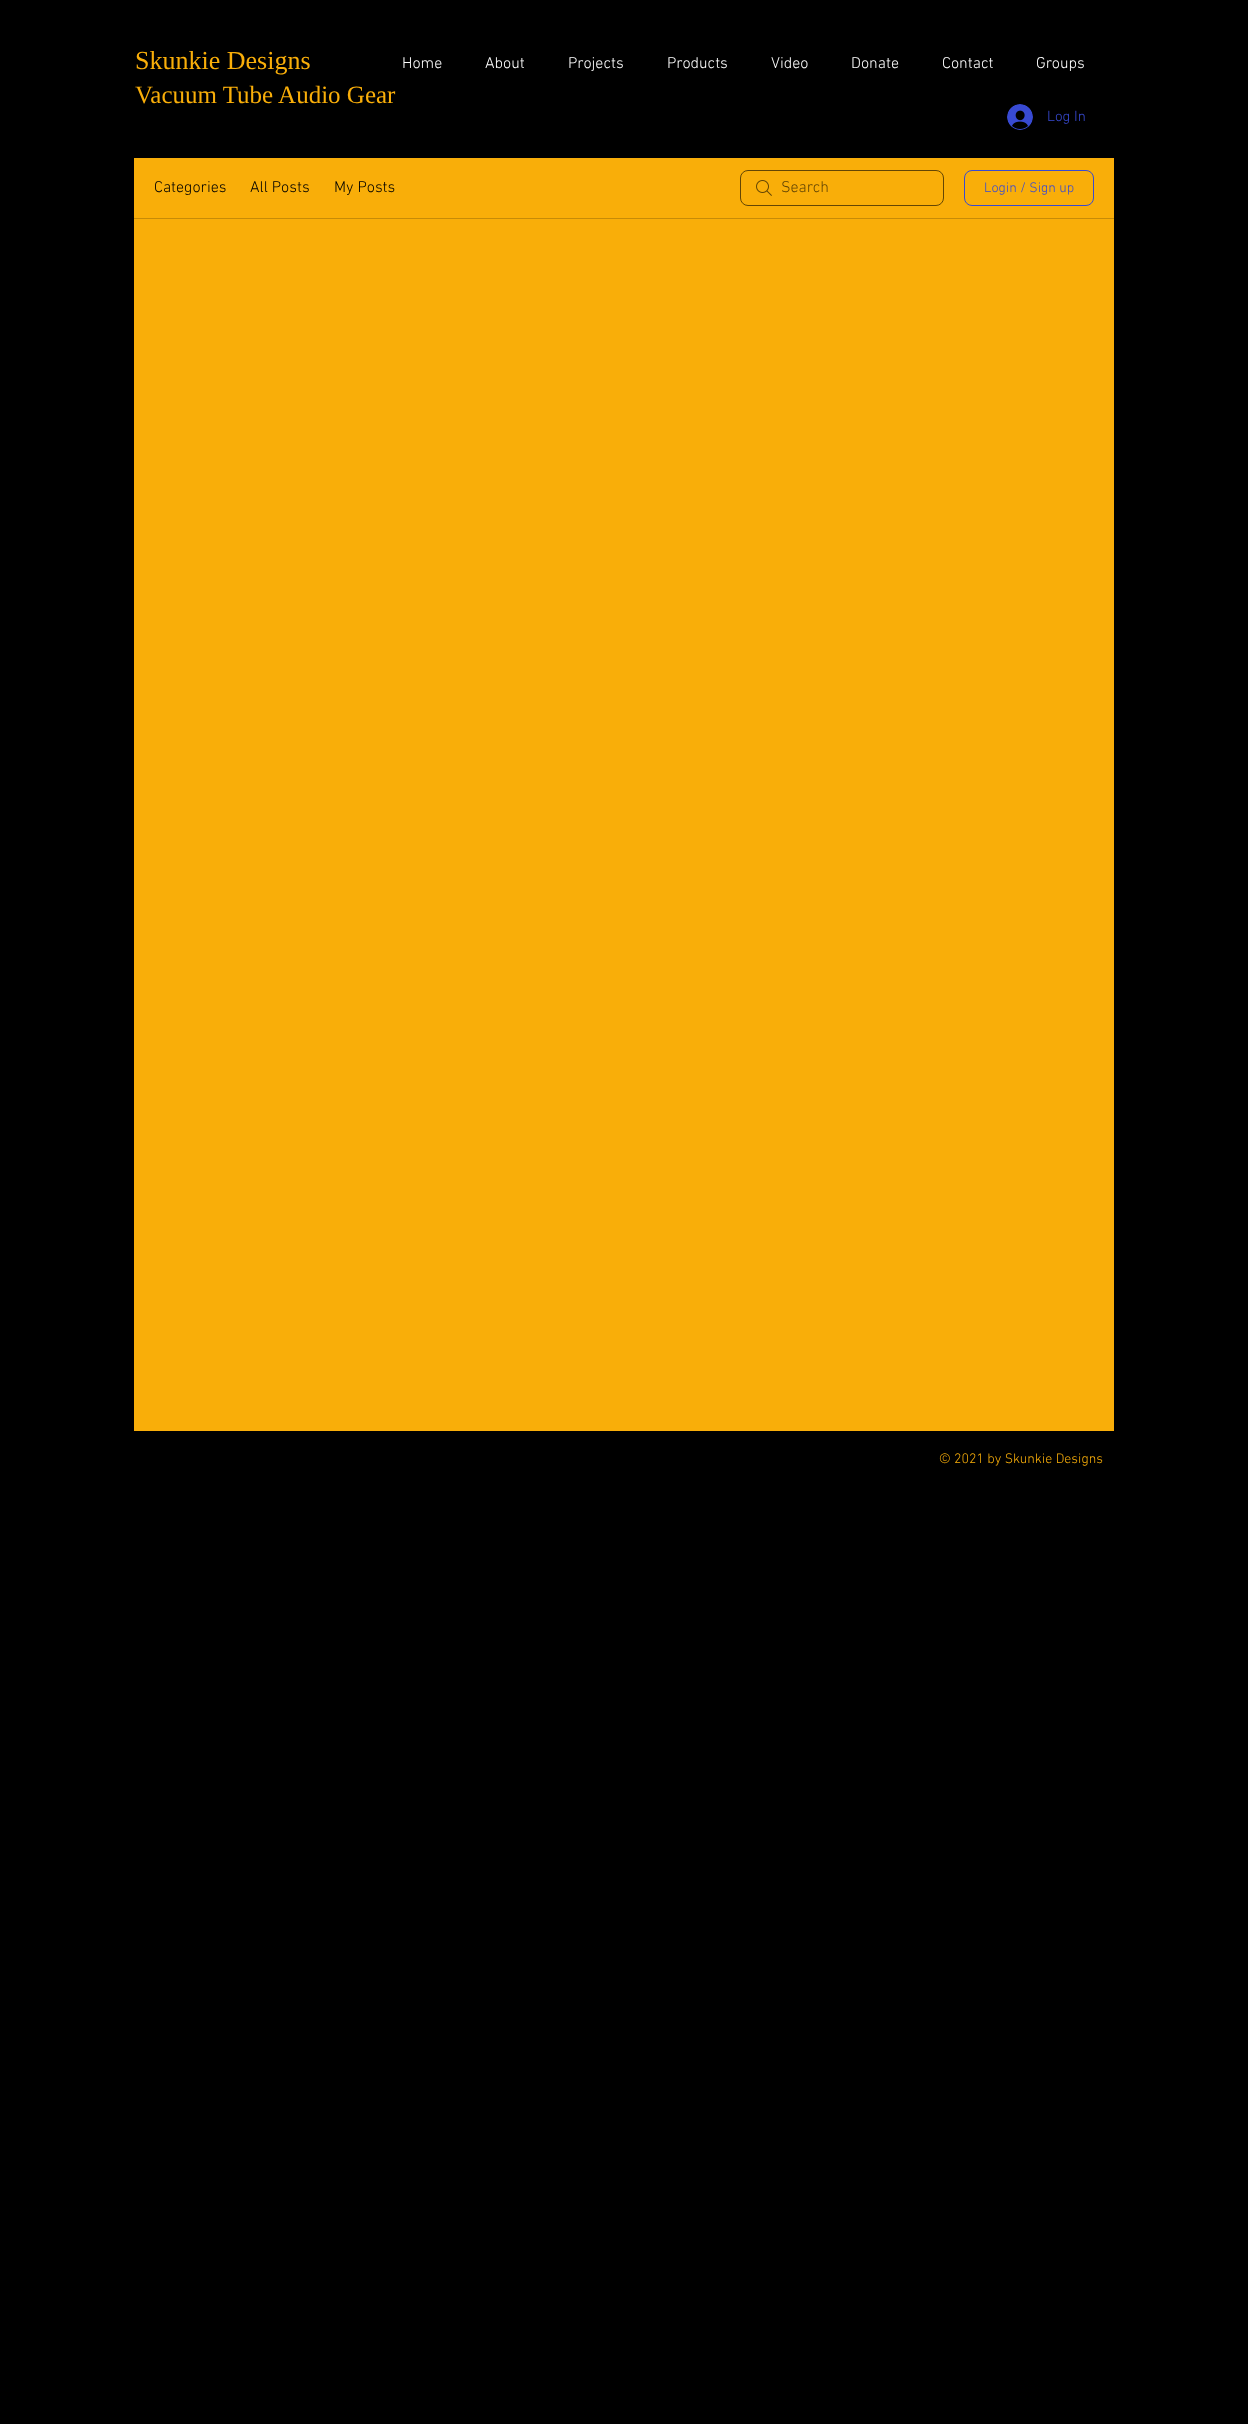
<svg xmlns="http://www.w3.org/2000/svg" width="1248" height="2424">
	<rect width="100%" height="100%" fill="#000000" />
	<text x="135" y="69" font-family="Liberation Serif" font-size="26" fill="#F9AE09">Skunkie Designs</text>
	<g font-family="'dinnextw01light'" font-size="16" font-weight="300" fill="#FFFFFF">
		<text x="402" y="68">Home</text>
		<text x="485" y="68">About</text>
		<text x="568" y="68">Projects</text>
		<text x="667" y="68">Products</text>
		<text x="771" y="68">Video</text>
		<text x="851" y="68">Donate</text>
		<text x="942" y="68">Contact</text>
		<text x="1036" y="68">Groups</text>
	</g>
	<text x="135" y="103" font-family="Liberation Serif" font-size="25" fill="#F9AE09">Vacuum Tube Audio Gear</text>
	<image x="1007" y="104" width="26" height="26" href="assets/img1.png" />
	<text x="1047" y="121" font-family="'dinnextw01light'" font-size="15" font-weight="300" fill="#384AD3">Log In</text>
	<rect x="134" y="158" width="980" height="1273" fill="#F9AE09" />
	<rect x="134" y="218" width="980" height="1" fill="#C78B07" />
	<g font-family="'dinnextw01light'" font-size="16" font-weight="300" fill="#000000">
		<text x="154" y="192">Categories</text>
		<text x="250" y="192">All Posts</text>
		<text x="334" y="192">My Posts</text>
	</g>
	<image x="756" y="180" width="16" height="16" href="assets/img2.png" />
	<rect x="740.5" y="170.5" width="203" height="35" rx="7.5" fill="none" stroke="#644604" />
	<text x="781" y="192" font-family="'dinnextw01light'" font-size="16" font-weight="300" fill="#644604">Search</text>
	<rect x="964.5" y="170.5" width="129" height="35" rx="7.5" fill="none" stroke="#384AD3" />
	<text x="984" y="192" font-family="'dinnextw01light'" font-size="14" font-weight="300" fill="#384AD3">Login / Sign up</text>
	<text x="939" y="1463" font-family="'dinnextw01light'" font-size="14" font-weight="300" fill="#F9AE09">© 2021 by Skunkie Designs</text>
</svg>
